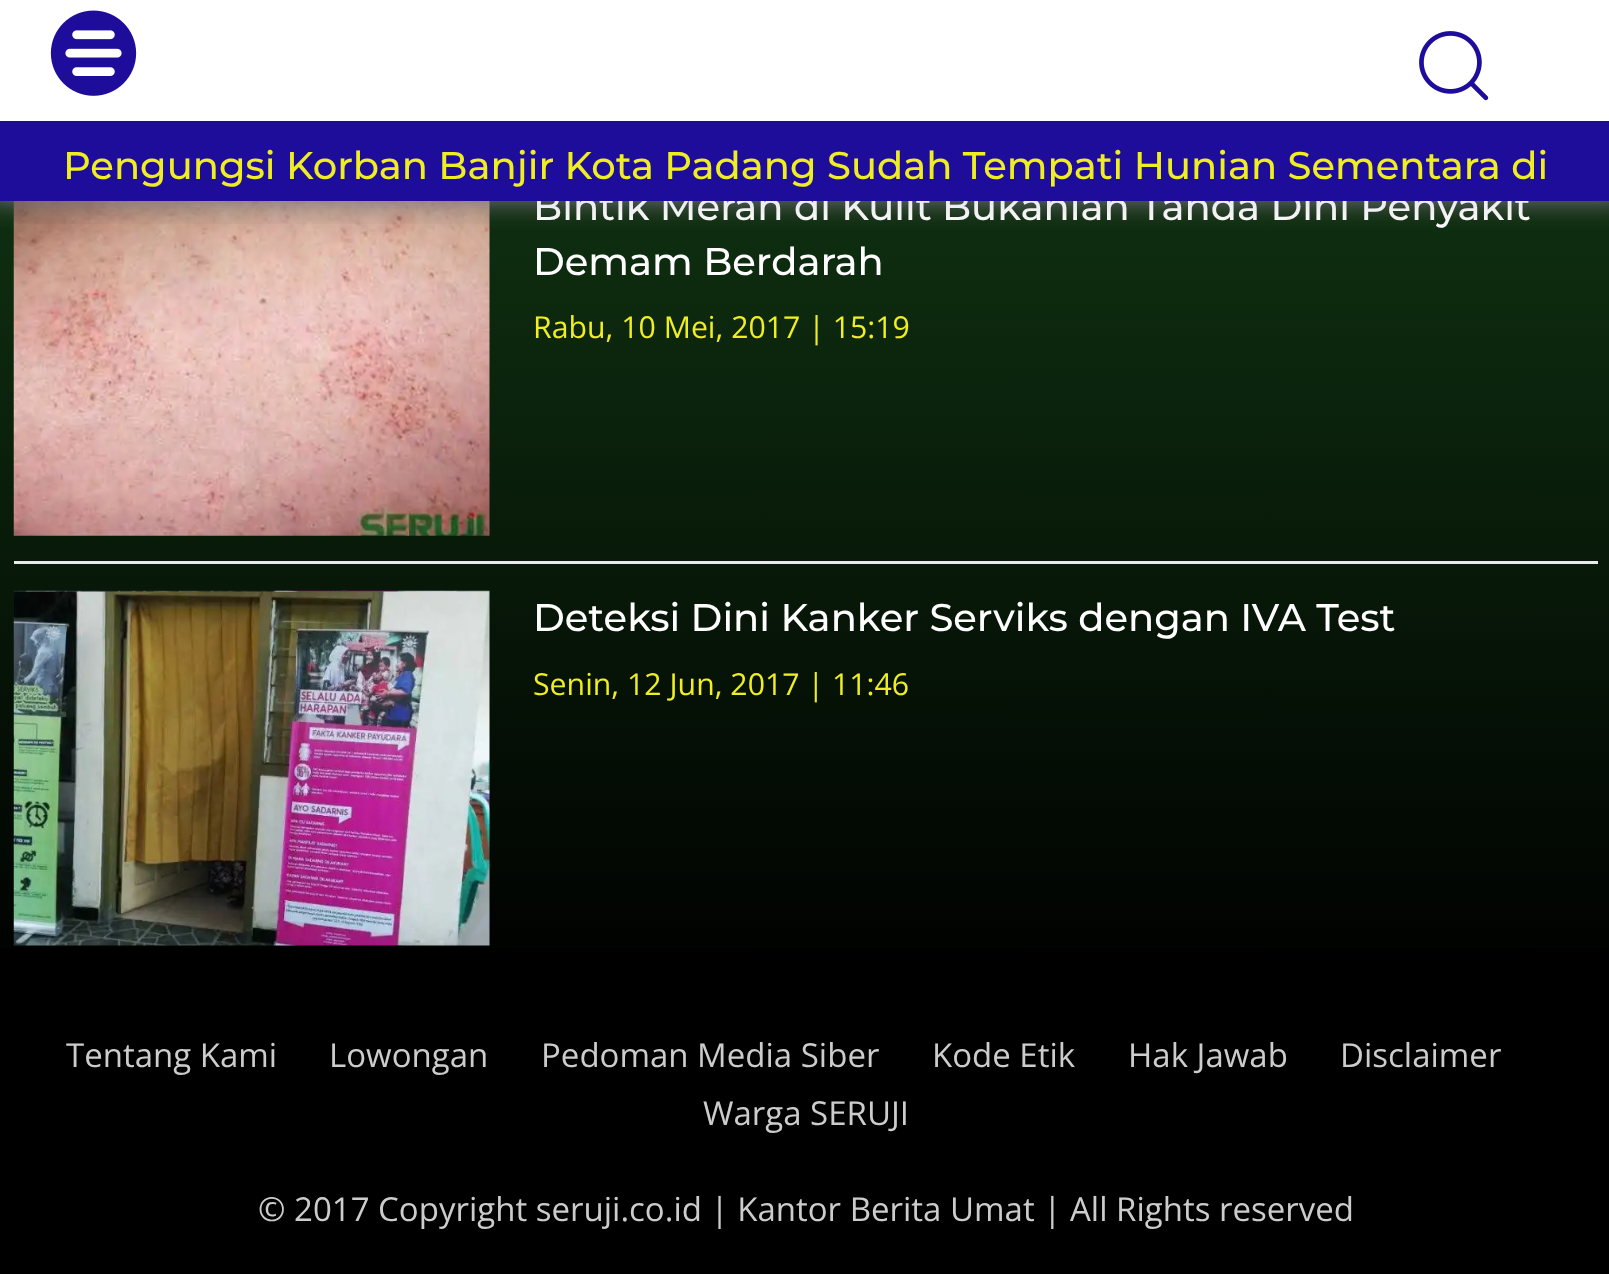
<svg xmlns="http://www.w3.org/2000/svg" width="1609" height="1274">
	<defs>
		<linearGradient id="g1" gradientUnits="userSpaceOnUse" x1="806" y1="-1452" x2="806" y2="990"><stop offset="0" stop-color="#2D9132" /><stop offset="1" stop-color="#000000" /></linearGradient>
		<clipPath id="clip1"><rect x="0" y="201" width="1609" height="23" /></clipPath>
	</defs>
	<rect width="100%" height="100%" fill="#000000" />
	<rect x="0" y="201" width="1609" height="747" fill="url(#g1)" />
	<image x="13" y="201" width="477" height="335" href="assets/img3.png" />
	<rect x="-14" y="0" width="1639" height="201" fill="#888888" filter="blur(14px)" />
	<rect x="0" y="0" width="1609" height="121" fill="#FFFFFF" />
	<image x="50" y="10" width="87" height="86" href="assets/img1.png" />
	<image x="1419" y="31" width="70" height="70" href="assets/img2.png" />
	<text x="533" y="220" font-family="Montserrat" font-size="38.5" font-weight="500" fill="#FFFFFF">Bintik Merah di Kulit Bukanlah Tanda Dini Penyakit</text>
	<rect x="0" y="121" width="1609" height="80" fill="#1E0D9B" />
	<g clip-path="url(#clip1)">
		<rect x="-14" y="17" width="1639" height="200" fill="#000000" fill-opacity="0.08" filter="blur(11px)" />
	</g>
	<text x="63" y="179" font-family="Montserrat" font-size="38.5" font-weight="500" fill="#EEEE22">Pengungsi Korban Banjir Kota Padang Sudah Tempati Hunian Sementara di</text>
	<text x="533" y="275" font-family="Montserrat" font-size="38.5" font-weight="500" fill="#FFFFFF">Demam Berdarah</text>
	<text x="533" y="338" font-family="Open Sans" font-size="30.25" fill="#EEEE22">Rabu, 10 Mei, 2017 | 15:19</text>
	<rect x="14" y="561" width="1584" height="3" fill="#EAEAEA" />
	<image x="13" y="590" width="477" height="356" href="assets/img4.png" />
	<text x="533" y="631" font-family="Montserrat" font-size="38.5" font-weight="500" fill="#FFFFFF">Deteksi Dini Kanker Serviks dengan IVA Test</text>
	<text x="533" y="695" font-family="Open Sans" font-size="30.25" fill="#EEEE22">Senin, 12 Jun, 2017 | 11:46</text>
	<g font-family="Open Sans" font-size="33" fill="#CCCCCC">
		<text x="66" y="1067">Tentang Kami</text>
		<text x="329" y="1067">Lowongan</text>
		<text x="541" y="1067">Pedoman Media Siber</text>
		<text x="932" y="1067">Kode Etik</text>
		<text x="1128" y="1067">Hak Jawab</text>
		<text x="1340" y="1067">Disclaimer</text>
		<text x="703" y="1125">Warga SERUJI</text>
		<text x="258" y="1221">© 2017 Copyright seruji.co.id | Kantor Berita Umat | All Rights reserved</text>
	</g>
</svg>
